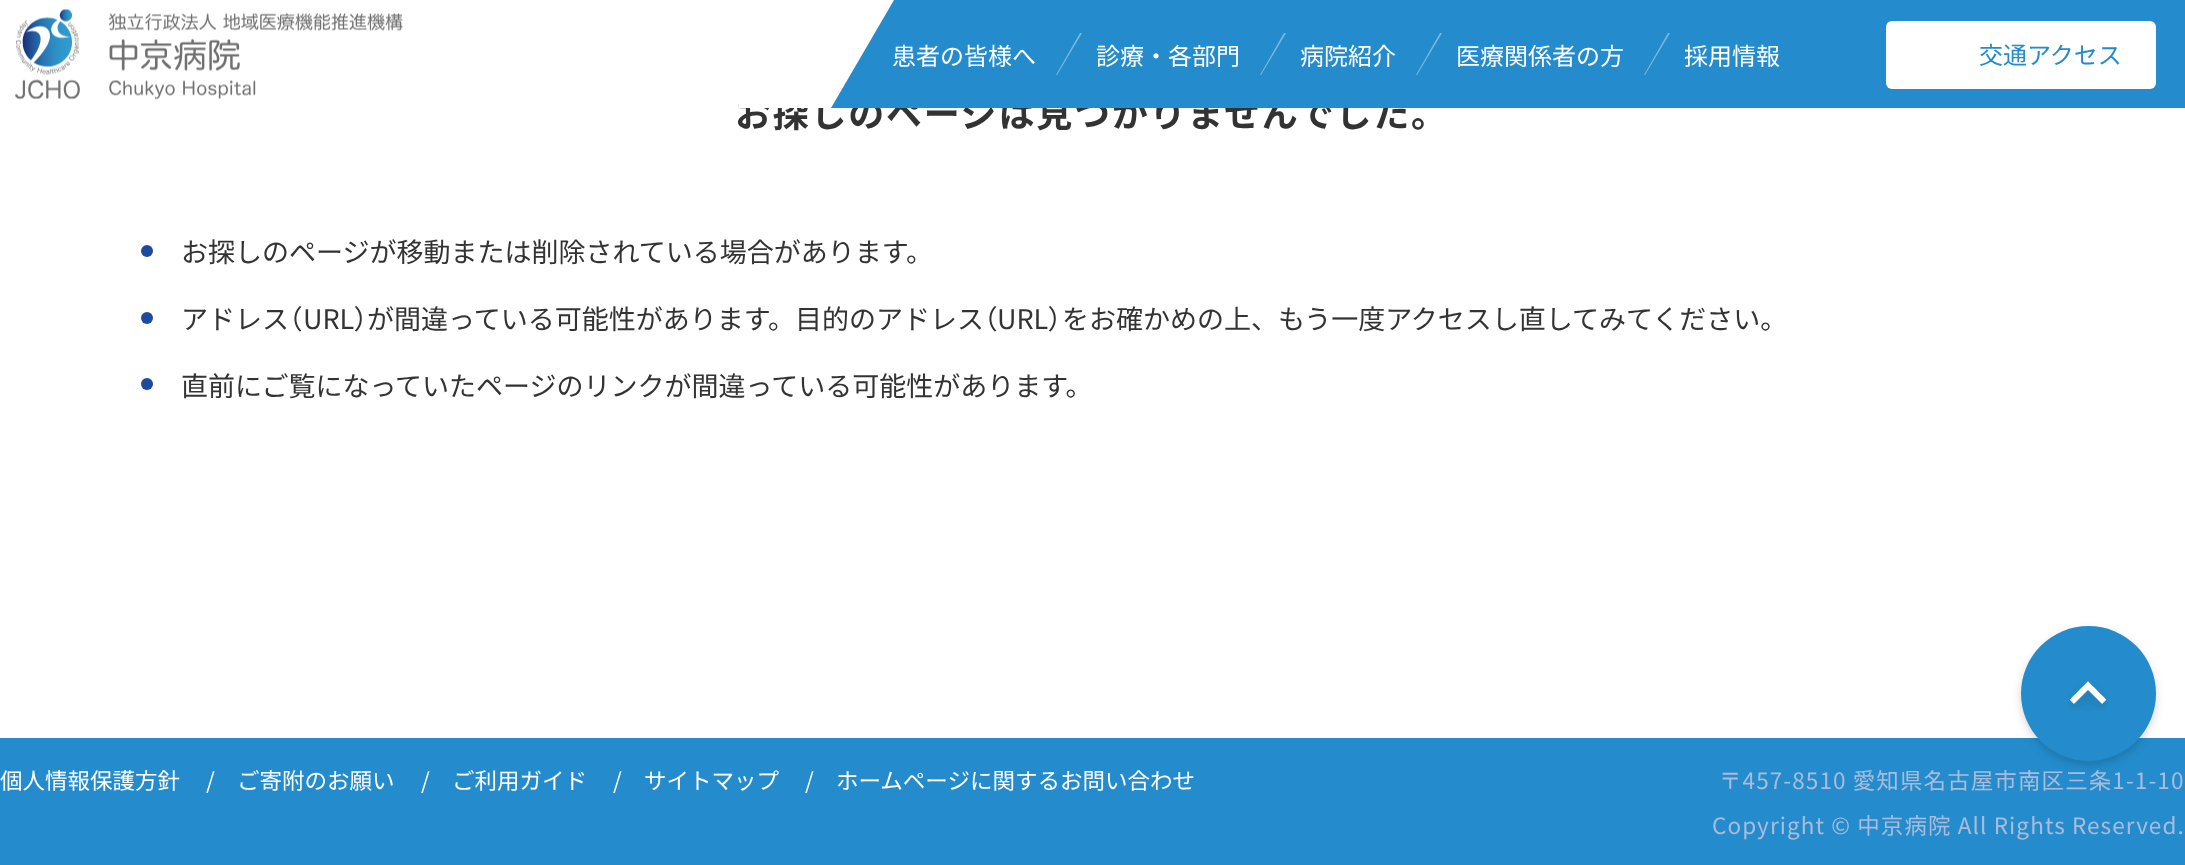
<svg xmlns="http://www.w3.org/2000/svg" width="2185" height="865">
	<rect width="100%" height="100%" fill="#FFFFFF" />
	<text x="735" y="127" font-family="Noto Sans JP" font-size="36" font-weight="700" letter-spacing="1.75" fill="#333333">お探しのページは見つかりませんでした。</text>
	<rect x="739" y="96" width="142" height="12" fill="#FFFFFF" />
	<rect x="1035" y="0" width="1150" height="108" fill="#248CCC" />
	<path d="M894 0H1098L1035 108H831Z" fill="#248CCC" />
	<text x="892" y="65" font-family="Noto Sans JP" font-size="24" fill="#FFFFFF">患者の皆様へ</text>
	<path d="M1080 33H1082L1057 75H1056Z" fill="#7CBAE0" />
	<text x="1096" y="65" font-family="Noto Sans JP" font-size="24" fill="#FFFFFF">診療・各部門</text>
	<path d="M1284 33H1286L1261 75H1260Z" fill="#7CBAE0" />
	<text x="1300" y="65" font-family="Noto Sans JP" font-size="24" fill="#FFFFFF">病院紹介</text>
	<path d="M1440 33H1442L1417 75H1416Z" fill="#7CBAE0" />
	<text x="1456" y="65" font-family="Noto Sans JP" font-size="24" fill="#FFFFFF">医療関係者の方</text>
	<path d="M1668 33H1670L1645 75H1644Z" fill="#7CBAE0" />
	<text x="1684" y="65" font-family="Noto Sans JP" font-size="24" fill="#FFFFFF">採用情報</text>
	<image x="15" y="9" width="388" height="91" href="assets/img1.png" />
	<rect x="1886" y="21" width="270" height="68" rx="6" fill="#FFFFFF" />
	<text x="1979" y="64" font-family="Noto Sans JP" font-size="24" fill="#248CCC">交通アクセス</text>
	<circle cx="147" cy="251" r="6" fill="#1D4A9E" />
	<text x="181" y="262" font-family="Noto Sans JP" font-size="27" fill="#333333">お探しのページが移動または削除されている場合があります。</text>
	<circle cx="147" cy="318" r="6" fill="#1D4A9E" />
	<text x="181" y="329" font-family="Noto Sans JP" font-size="27" fill="#333333">アドレス</text>
	<text x="289" y="329" font-family="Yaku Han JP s" font-size="27" fill="#333333">（</text>
	<text x="303" y="329" font-family="Noto Sans JP" font-size="27" fill="#333333">URL</text>
	<text x="354" y="329" font-family="Yaku Han JP s" font-size="27" fill="#333333">）</text>
	<text x="367" y="329" font-family="Noto Sans JP" font-size="27" fill="#333333">が間違っている可能性があります。目的のアドレス</text>
	<text x="984" y="329" font-family="Yaku Han JP s" font-size="27" fill="#333333">（</text>
	<text x="997" y="329" font-family="Noto Sans JP" font-size="27" fill="#333333">URL</text>
	<text x="1048" y="329" font-family="Yaku Han JP s" font-size="27" fill="#333333">）</text>
	<text x="1062" y="329" font-family="Noto Sans JP" font-size="27" fill="#333333">をお確かめの上、もう一度アクセスし直してみてください。</text>
	<circle cx="147" cy="384" r="6" fill="#1D4A9E" />
	<text x="181" y="396" font-family="Noto Sans JP" font-size="27" fill="#333333">直前にご覧になっていたページのリンクが間違っている可能性があります。</text>
	<rect x="0" y="738" width="2185" height="127" fill="#248CCC" />
	<rect x="2021" y="630" width="135" height="135" rx="67.5" fill="#000000" fill-opacity="0.16" filter="blur(4.5px)" />
	<circle cx="2088.5" cy="693.5" r="67.5" fill="#248CCC" />
	<image x="2068" y="681" width="40" height="30" href="assets/img2.png" />
	<g font-family="Noto Sans JP" font-size="22.5" fill="#FFFFFF">
		<text x="0" y="789">個人情報保護方針</text>
		<text x="206" y="789">/</text>
		<text x="237" y="789">ご寄附のお願い</text>
		<text x="421" y="789">/</text>
		<text x="452" y="789">ご利用ガイド</text>
		<text x="613" y="789">/</text>
		<text x="644" y="789">サイトマップ</text>
		<text x="805" y="789">/</text>
		<text x="836" y="789">ホームページに関するお問い合わせ</text>
	</g>
	<g font-family="Noto Sans JP" font-size="22.5" letter-spacing="1.1" fill="#ABBCDB">
		<text x="1719" y="789">〒457-8510 愛知県名古屋市南区三条1-1-10</text>
		<text x="1712" y="834">Copyright © 中京病院 All Rights Reserved.</text>
	</g>
</svg>
